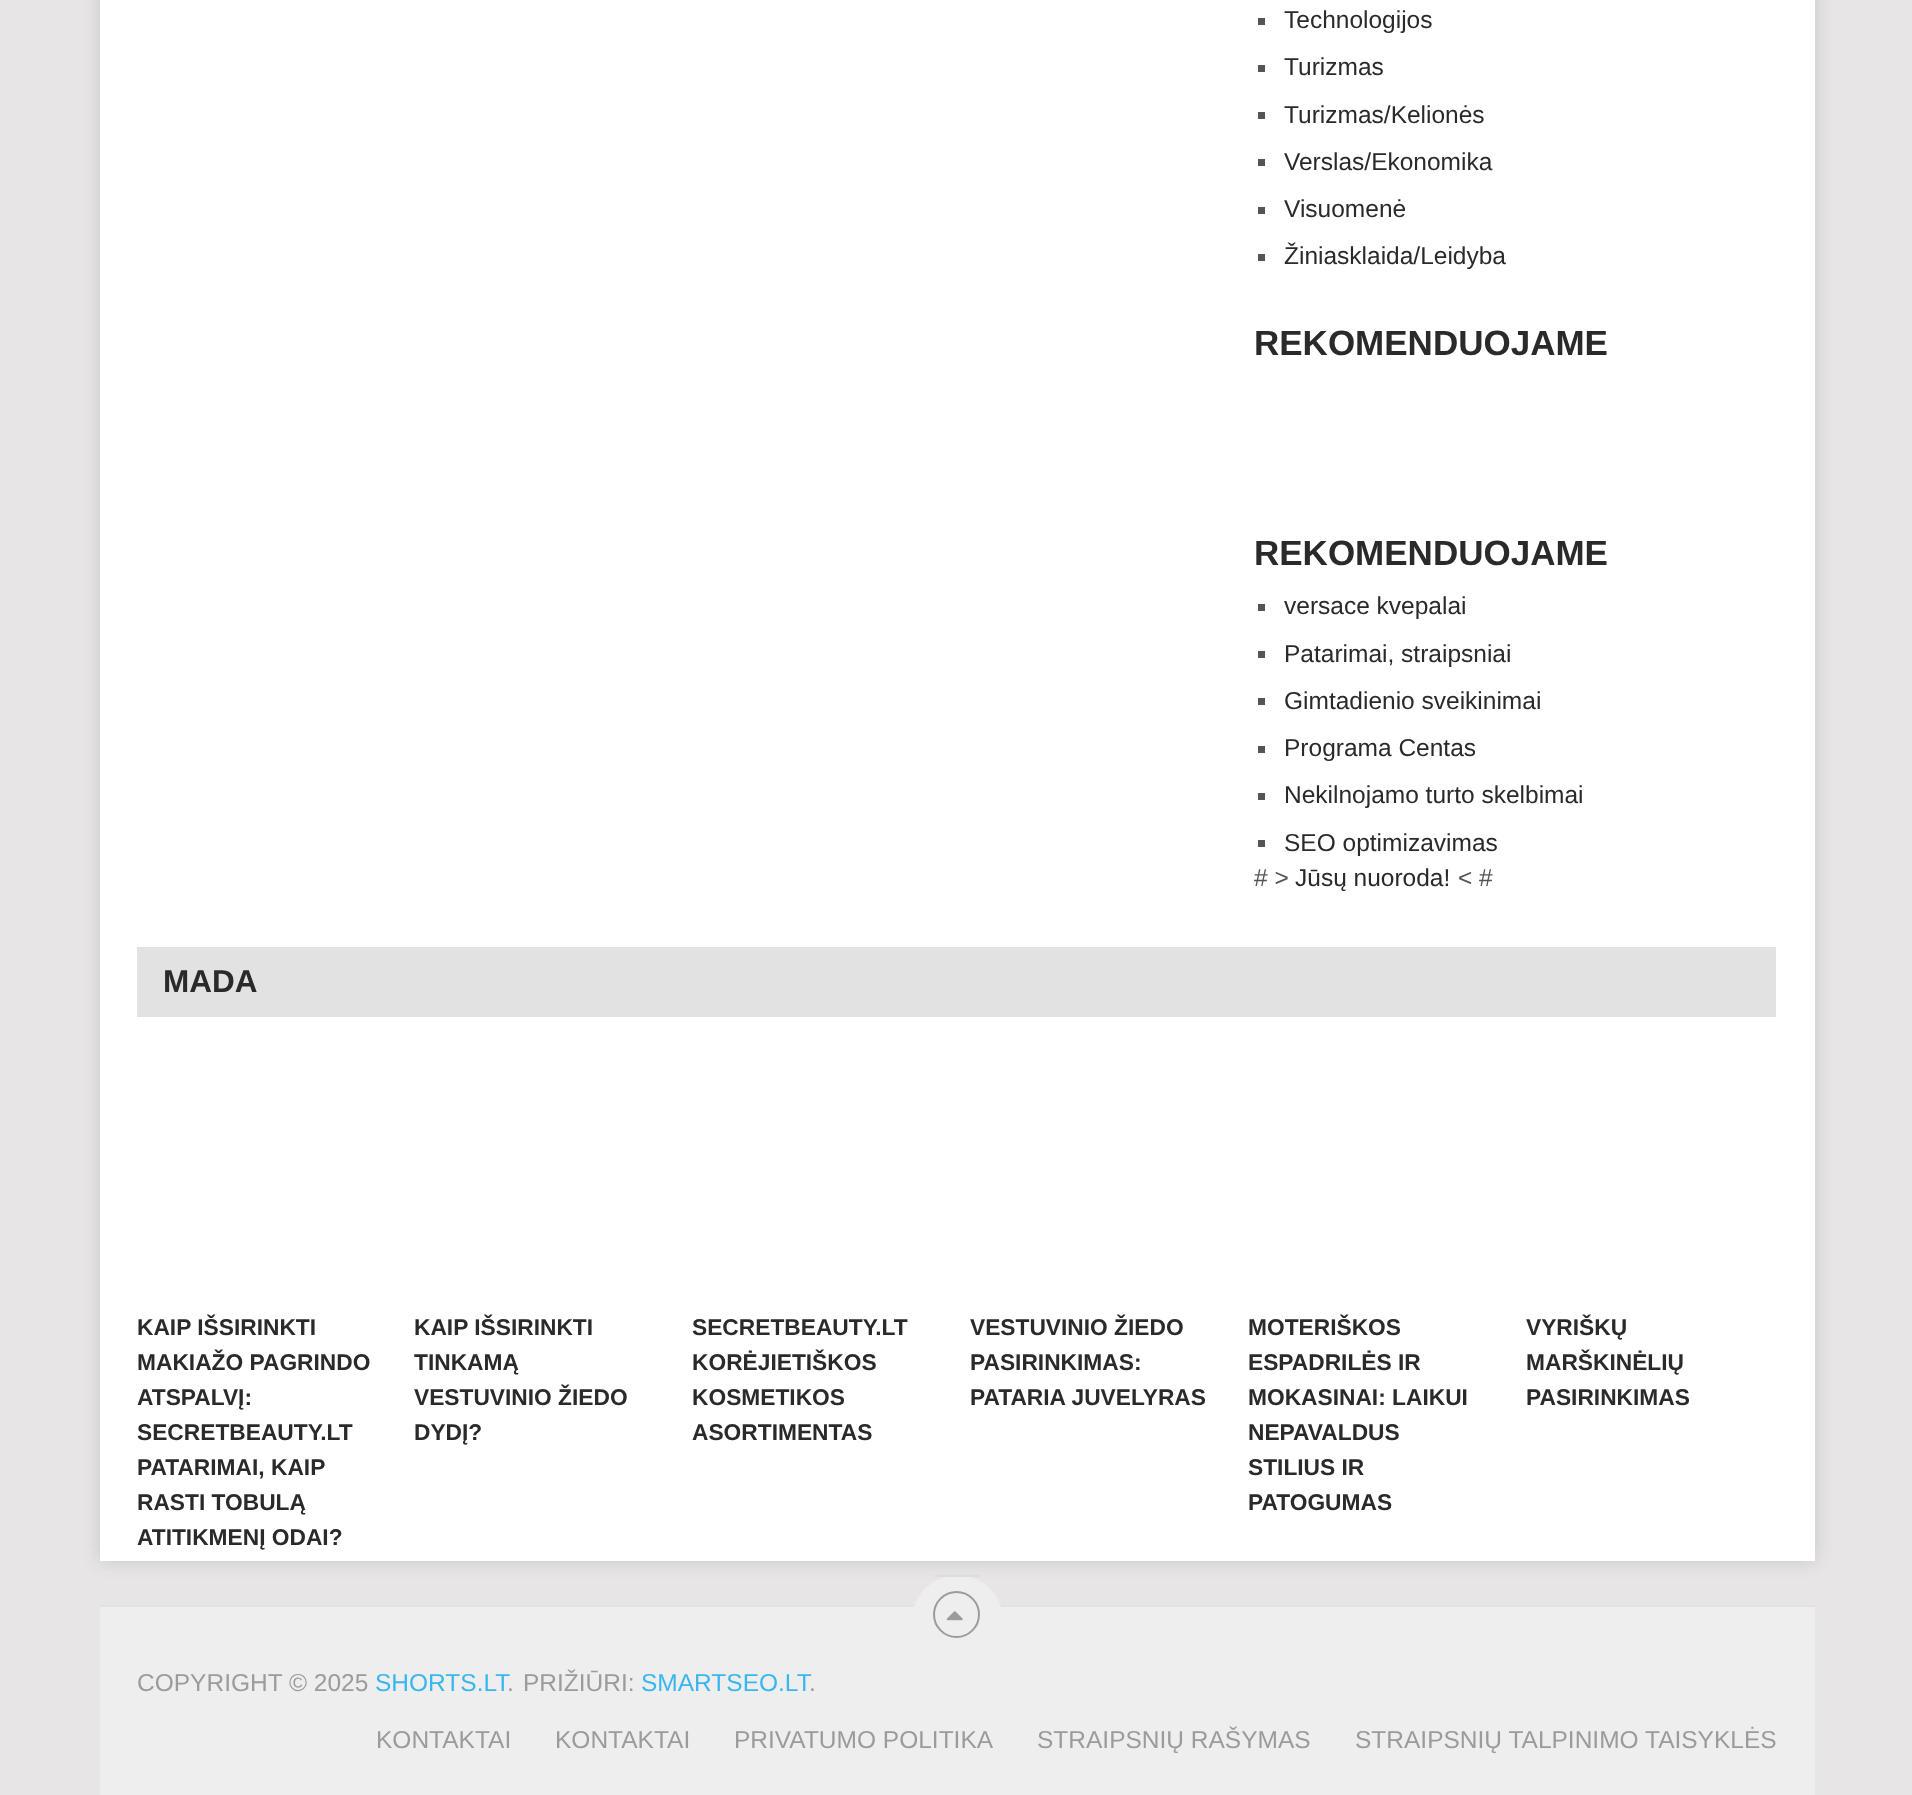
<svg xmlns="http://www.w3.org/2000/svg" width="1912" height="1795">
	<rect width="100%" height="100%" fill="#E7E5E6" />
	<rect x="100" y="-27" width="1715" height="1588" fill="#323232" fill-opacity="0.17" filter="blur(9px)" />
	<rect x="100" y="0" width="1715" height="1561" fill="#FFFFFF" />
	<rect x="1258" y="18" width="7" height="7" fill="#555555" />
	<text x="1284" y="28" font-family="Liberation Sans" font-size="24.5" fill="#2A2A2A">Technologijos</text>
	<rect x="1258" y="65" width="7" height="7" fill="#555555" />
	<text x="1284" y="75" font-family="Liberation Sans" font-size="24.5" fill="#2A2A2A">Turizmas</text>
	<rect x="1258" y="112" width="7" height="7" fill="#555555" />
	<text x="1284" y="123" font-family="Liberation Sans" font-size="24.5" fill="#2A2A2A">Turizmas/Kelionės</text>
	<rect x="1258" y="159" width="7" height="7" fill="#555555" />
	<text x="1284" y="170" font-family="Liberation Sans" font-size="24.5" fill="#2A2A2A">Verslas/Ekonomika</text>
	<rect x="1258" y="207" width="7" height="7" fill="#555555" />
	<text x="1284" y="217" font-family="Liberation Sans" font-size="24.5" fill="#2A2A2A">Visuomenė</text>
	<rect x="1258" y="254" width="7" height="7" fill="#555555" />
	<text x="1284" y="264" font-family="Liberation Sans" font-size="24.5" fill="#2A2A2A">Žiniasklaida/Leidyba</text>
	<g font-family="Liberation Sans" font-size="35" font-weight="700" fill="#2A2A2A">
		<text x="1254" y="355">REKOMENDUOJAME</text>
		<text x="1254" y="565">REKOMENDUOJAME</text>
	</g>
	<rect x="1258" y="604" width="7" height="7" fill="#555555" />
	<text x="1284" y="614" font-family="Liberation Sans" font-size="24.5" fill="#2A2A2A">versace kvepalai</text>
	<rect x="1258" y="651" width="7" height="7" fill="#555555" />
	<text x="1284" y="662" font-family="Liberation Sans" font-size="24.5" fill="#2A2A2A">Patarimai, straipsniai</text>
	<rect x="1258" y="698" width="7" height="7" fill="#555555" />
	<text x="1284" y="709" font-family="Liberation Sans" font-size="24.5" fill="#2A2A2A">Gimtadienio sveikinimai</text>
	<rect x="1258" y="746" width="7" height="7" fill="#555555" />
	<text x="1284" y="756" font-family="Liberation Sans" font-size="24.5" fill="#2A2A2A">Programa Centas</text>
	<rect x="1258" y="793" width="7" height="7" fill="#555555" />
	<text x="1284" y="803" font-family="Liberation Sans" font-size="24.5" fill="#2A2A2A">Nekilnojamo turto skelbimai</text>
	<rect x="1258" y="840" width="7" height="7" fill="#555555" />
	<text x="1284" y="851" font-family="Liberation Sans" font-size="24.5" fill="#2A2A2A">SEO optimizavimas</text>
	<text x="1254" y="886" font-family="Liberation Sans" font-size="24.5" fill="#555555"># &gt;</text>
	<text x="1295" y="886" font-family="Liberation Sans" font-size="24.5" fill="#2A2A2A">Jūsų nuoroda!</text>
	<text x="1458" y="886" font-family="Liberation Sans" font-size="24.5" fill="#555555">&lt; #</text>
	<rect x="137" y="947" width="1639" height="70" fill="#E2E2E2" />
	<text x="163" y="992" font-family="Liberation Sans" font-size="31.5" font-weight="700" fill="#2A2A2A">MADA</text>
	<g font-family="Liberation Sans" font-size="22.75" font-weight="700" fill="#2A2A2A">
		<text x="137" y="1335">KAIP IŠSIRINKTI</text>
		<text x="137" y="1370">MAKIAŽO PAGRINDO</text>
		<text x="137" y="1405">ATSPALVĮ:</text>
		<text x="137" y="1440">SECRETBEAUTY.LT</text>
		<text x="137" y="1475">PATARIMAI, KAIP</text>
		<text x="137" y="1510">RASTI TOBULĄ</text>
		<text x="137" y="1545">ATITIKMENĮ ODAI?</text>
		<text x="414" y="1335">KAIP IŠSIRINKTI</text>
		<text x="414" y="1370">TINKAMĄ</text>
		<text x="414" y="1405">VESTUVINIO ŽIEDO</text>
		<text x="414" y="1440">DYDĮ?</text>
		<text x="692" y="1335">SECRETBEAUTY.LT</text>
		<text x="692" y="1370">KORĖJIETIŠKOS</text>
		<text x="692" y="1405">KOSMETIKOS</text>
		<text x="692" y="1440">ASORTIMENTAS</text>
		<text x="970" y="1335">VESTUVINIO ŽIEDO</text>
		<text x="970" y="1370">PASIRINKIMAS:</text>
		<text x="970" y="1405">PATARIA JUVELYRAS</text>
		<text x="1248" y="1335">MOTERIŠKOS</text>
		<text x="1248" y="1370">ESPADRILĖS IR</text>
		<text x="1248" y="1405">MOKASINAI: LAIKUI</text>
		<text x="1248" y="1440">NEPAVALDUS</text>
		<text x="1248" y="1475">STILIUS IR</text>
		<text x="1248" y="1510">PATOGUMAS</text>
		<text x="1526" y="1335">VYRIŠKŲ</text>
		<text x="1526" y="1370">MARŠKINĖLIŲ</text>
		<text x="1526" y="1405">PASIRINKIMAS</text>
	</g>
	<rect x="100" y="1607" width="1715" height="188" fill="#EEEEEE" />
	<rect x="100" y="1605" width="1715" height="2" fill="#E2E2E2" />
	<circle cx="957.5" cy="1620.5" r="45.5" fill="#EEEEEE" />
	<rect x="935" y="1575" width="45" height="2" fill="#DDDDDD" />
	<circle cx="956.5" cy="1614.5" r="22.5" fill="none" stroke="#9B9B9B" stroke-width="2" />
	<image x="946" y="1611" width="17" height="10" href="assets/img1.png" />
	<text x="137" y="1691" font-family="Liberation Sans" font-size="24.5" fill="#9B9B9B">COPYRIGHT © 2025</text>
	<text x="375" y="1691" font-family="Liberation Sans" font-size="24.5" fill="#38B7EE">SHORTS.LT</text>
	<g font-family="Liberation Sans" font-size="24.5" fill="#9B9B9B">
		<text x="507" y="1691">.</text>
		<text x="523" y="1691">PRIŽIŪRI:</text>
	</g>
	<text x="641" y="1691" font-family="Liberation Sans" font-size="24.5" fill="#38B7EE">SMARTSEO.LT</text>
	<g font-family="Liberation Sans" font-size="24.5" fill="#9B9B9B">
		<text x="809" y="1691">.</text>
		<text x="376" y="1748">KONTAKTAI</text>
		<text x="555" y="1748">KONTAKTAI</text>
		<text x="734" y="1748">PRIVATUMO POLITIKA</text>
		<text x="1037" y="1748">STRAIPSNIŲ RAŠYMAS</text>
		<text x="1355" y="1748">STRAIPSNIŲ TALPINIMO TAISYKLĖS</text>
	</g>
</svg>
